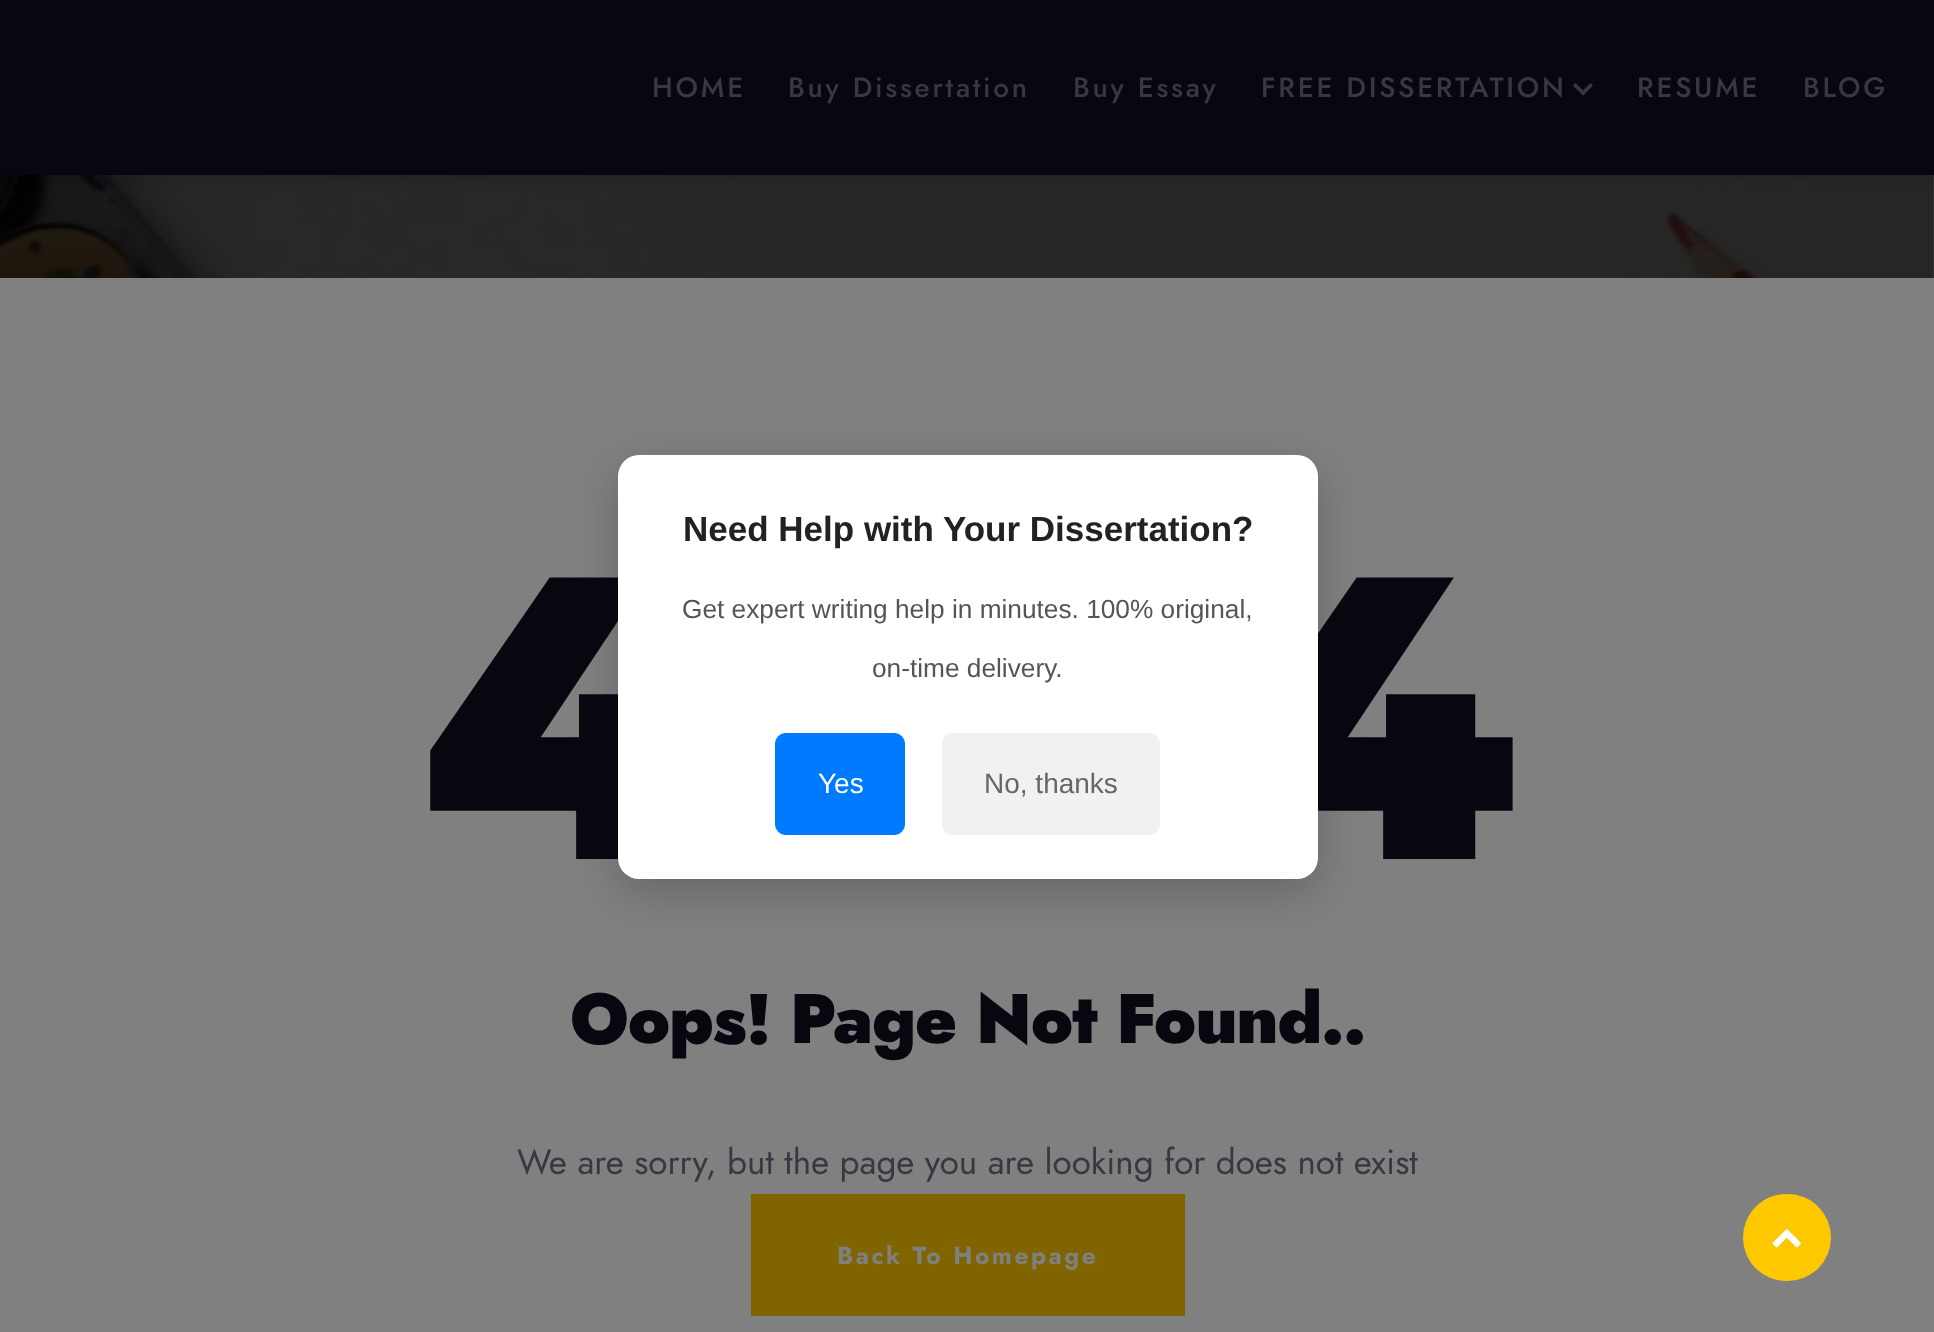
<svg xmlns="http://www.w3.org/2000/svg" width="1934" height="1332">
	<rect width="100%" height="100%" fill="#808080" />
	<image x="0" y="175" width="1934" height="103" href="assets/img1.png" />
	<rect x="2" y="9" width="1932" height="171" fill="#000000" fill-opacity="0.1" filter="blur(5px)" />
	<rect x="0" y="0" width="1934" height="175" fill="#08070F" />
	<g font-family="Jost" font-size="28" font-weight="500" letter-spacing="2.75" fill="#393842">
		<text x="652" y="97">HOME</text>
		<text x="788" y="97">Buy Dissertation</text>
		<text x="1073" y="97">Buy Essay</text>
		<text x="1261" y="97">FREE DISSERTATION</text>
	</g>
	<path d="M1573 85.5L1575.5 83L1585.5 93L1583 95.5Z" fill="#393842" />
	<path d="M1580.5 93L1590.5 83L1593 85.5L1583 95.5Z" fill="#393842" />
	<g font-family="Jost" font-size="28" font-weight="500" letter-spacing="2.75" fill="#393842">
		<text x="1637" y="97">RESUME</text>
		<text x="1803" y="97">BLOG</text>
	</g>
	<rect x="618" y="469" width="700" height="424" rx="21" fill="#000000" fill-opacity="0.2" filter="blur(22px)" />
	<g font-family="Montserrat" font-size="402" font-weight="900" fill="#08070F">
		<text x="421" y="859">4</text>
		<text x="1228" y="859">4</text>
	</g>
	<rect x="618" y="455" width="700" height="424" rx="21" fill="#FFFFFF" />
	<text x="683" y="541" font-family="Liberation Sans" font-size="35" font-weight="700" fill="#222222">Need Help with Your Dissertation?</text>
	<g font-family="Liberation Sans" font-size="26.25" fill="#555555">
		<text x="682" y="618">Get expert writing help in minutes. 100% original,</text>
		<text x="872" y="677">on-time delivery.</text>
	</g>
	<rect x="775" y="733" width="130" height="102" rx="11" fill="#007BFF" />
	<text x="818" y="793" font-family="Liberation Sans" font-size="28" fill="#FFFFFF">Yes</text>
	<rect x="942" y="733" width="218" height="102" rx="11" fill="#F1F1F1" />
	<text x="984" y="793" font-family="Liberation Sans" font-size="28" fill="#666666">No, thanks</text>
	<text x="570" y="1043" font-family="Jost" font-size="70" font-weight="900" letter-spacing="-1.4" fill="#08070F">Oops! Page Not Found..</text>
	<text x="517" y="1174" font-family="Jost" font-size="35" fill="#393842">We are sorry, but the page you are looking for does not exist</text>
	<rect x="751" y="1194" width="434" height="122" fill="#7F6400" />
	<text x="837" y="1264" font-family="Jost" font-size="24.5" font-weight="700" letter-spacing="2.5" fill="#808080">Back To Homepage</text>
	<rect x="1743" y="1194" width="88" height="87" rx="43.5" fill="#FDC800" />
	<image x="1772" y="1229" width="29" height="19" href="assets/img2.png" />
</svg>
